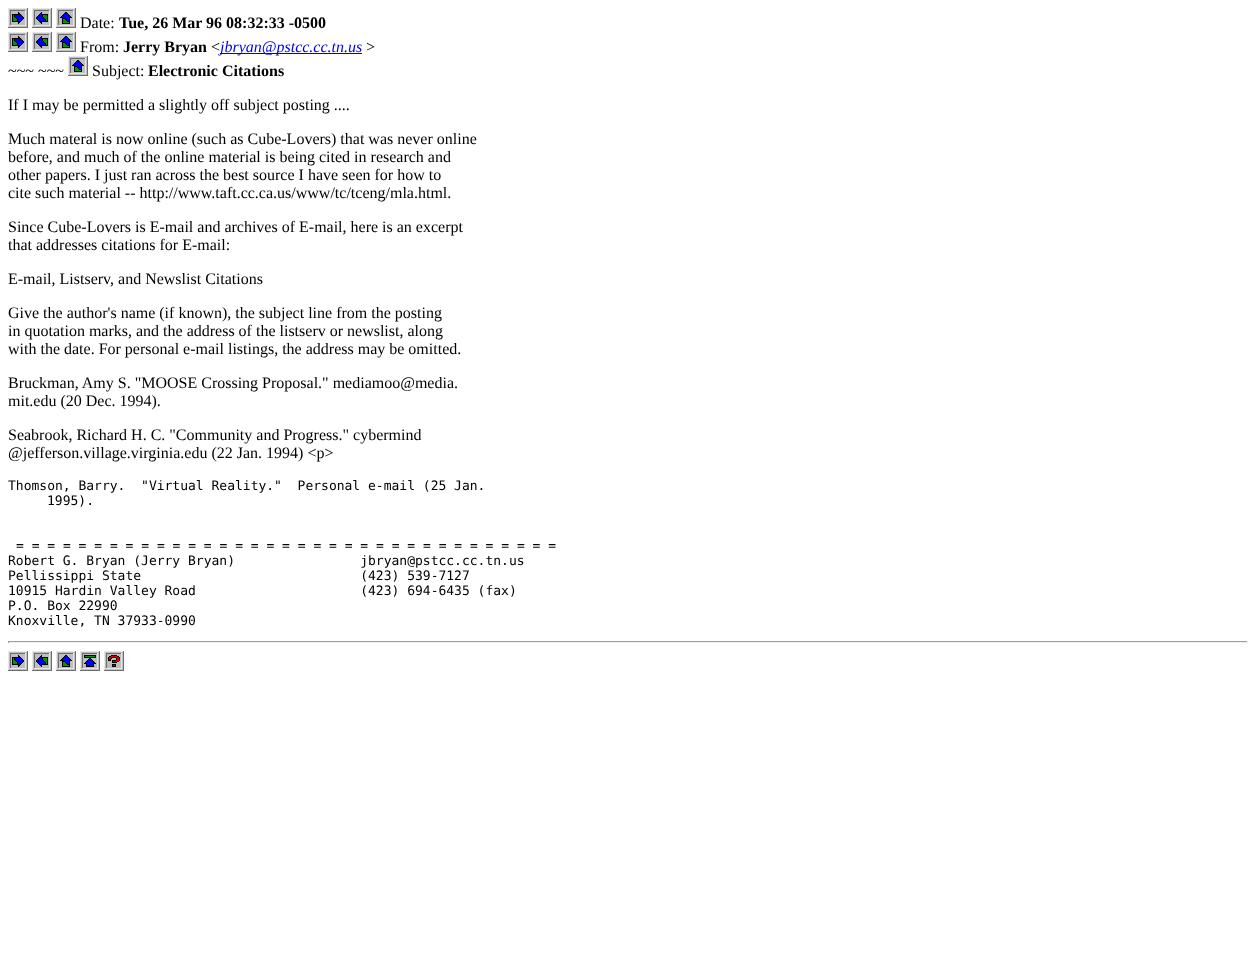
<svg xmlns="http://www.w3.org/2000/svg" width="1256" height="972">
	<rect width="100%" height="100%" fill="#FFFFFF" />
	<image x="8" y="8" width="20" height="20" href="assets/img1.png" />
	<image x="32" y="8" width="20" height="20" href="assets/img2.png" />
	<image x="56" y="8" width="20" height="20" href="assets/img3.png" />
	<text x="80" y="28" font-family="Liberation Serif" font-size="16" fill="#000000">Date:</text>
	<text x="119" y="28" font-family="Liberation Serif" font-size="16" font-weight="700" fill="#000000">Tue, 26 Mar 96 08:32:33 -0500</text>
	<image x="8" y="32" width="20" height="20" href="assets/img1.png" />
	<image x="32" y="32" width="20" height="20" href="assets/img2.png" />
	<image x="56" y="32" width="20" height="20" href="assets/img3.png" />
	<text x="80" y="52" font-family="Liberation Serif" font-size="16" fill="#000000">From:</text>
	<text x="123" y="52" font-family="Liberation Serif" font-size="16" font-weight="700" fill="#000000">Jerry Bryan</text>
	<text x="211" y="52" font-family="Liberation Serif" font-size="16" fill="#000000">&lt;</text>
	<rect x="220" y="53" width="142" height="1" fill="#0000EE" />
	<text x="220" y="52" font-family="Liberation Serif" font-size="16" font-style="italic" fill="#0000EE">jbryan@pstcc.cc.tn.us</text>
	<g font-family="Liberation Serif" font-size="16" fill="#000000">
		<text x="366" y="52">&gt;</text>
		<text x="8" y="76">~~~ ~~~</text>
	</g>
	<image x="68" y="56" width="20" height="20" href="assets/img3.png" />
	<text x="92" y="76" font-family="Liberation Serif" font-size="16" fill="#000000">Subject:</text>
	<text x="148" y="76" font-family="Liberation Serif" font-size="16" font-weight="700" fill="#000000">Electronic Citations</text>
	<g font-family="Liberation Serif" font-size="16" fill="#000000">
		<text x="8" y="110">If I may be permitted a slightly off subject posting ....</text>
		<text x="8" y="144">Much materal is now online (such as Cube-Lovers) that was never online</text>
		<text x="8" y="162">before, and much of the online material is being cited in research and</text>
		<text x="8" y="180">other papers. I just ran across the best source I have seen for how to</text>
		<text x="8" y="198">cite such material -- http://www.taft.cc.ca.us/www/tc/tceng/mla.html.</text>
		<text x="8" y="232">Since Cube-Lovers is E-mail and archives of E-mail, here is an excerpt</text>
		<text x="8" y="250">that addresses citations for E-mail:</text>
		<text x="8" y="284">E-mail, Listserv, and Newslist Citations</text>
		<text x="8" y="318">Give the author's name (if known), the subject line from the posting</text>
		<text x="8" y="336">in quotation marks, and the address of the listserv or newslist, along</text>
		<text x="8" y="354">with the date. For personal e-mail listings, the address may be omitted.</text>
		<text x="8" y="388">Bruckman, Amy S. "MOOSE Crossing Proposal." mediamoo@media.</text>
		<text x="8" y="406">mit.edu (20 Dec. 1994).</text>
		<text x="8" y="440">Seabrook, Richard H. C. "Community and Progress." cybermind</text>
		<text x="8" y="458">@jefferson.village.virginia.edu (22 Jan. 1994) &lt;p&gt;</text>
	</g>
	<g font-family="DejaVu Sans Mono" font-size="13" fill="#000000">
		<text x="8" y="490" xml:space="preserve">Thomson, Barry.  "Virtual Reality."  Personal e-mail (25 Jan.</text>
		<text x="47" y="505">1995).</text>
		<text x="16" y="550">= = = = = = = = = = = = = = = = = = = = = = = = = = = = = = = = = = =</text>
		<text x="8" y="565" xml:space="preserve">Robert G. Bryan (Jerry Bryan)                jbryan@pstcc.cc.tn.us</text>
		<text x="8" y="580" xml:space="preserve">Pellissippi State                            (423) 539-7127</text>
		<text x="8" y="595" xml:space="preserve">10915 Hardin Valley Road                     (423) 694-6435 (fax)</text>
		<text x="8" y="610">P.O. Box 22990</text>
		<text x="8" y="625">Knoxville, TN 37933-0990</text>
	</g>
	<rect x="8" y="641" width="1240" height="1" fill="#9F9F9F" />
	<rect x="1247" y="641" width="1" height="2" fill="#EEEEEE" />
	<rect x="8" y="642" width="1240" height="1" fill="#EEEEEE" />
	<rect x="8" y="641" width="1" height="2" fill="#9F9F9F" />
	<image x="8" y="651" width="20" height="20" href="assets/img1.png" />
	<image x="32" y="651" width="20" height="20" href="assets/img2.png" />
	<image x="56" y="651" width="20" height="20" href="assets/img3.png" />
	<image x="80" y="651" width="20" height="20" href="assets/img4.png" />
	<image x="104" y="651" width="20" height="20" href="assets/img5.png" />
</svg>
